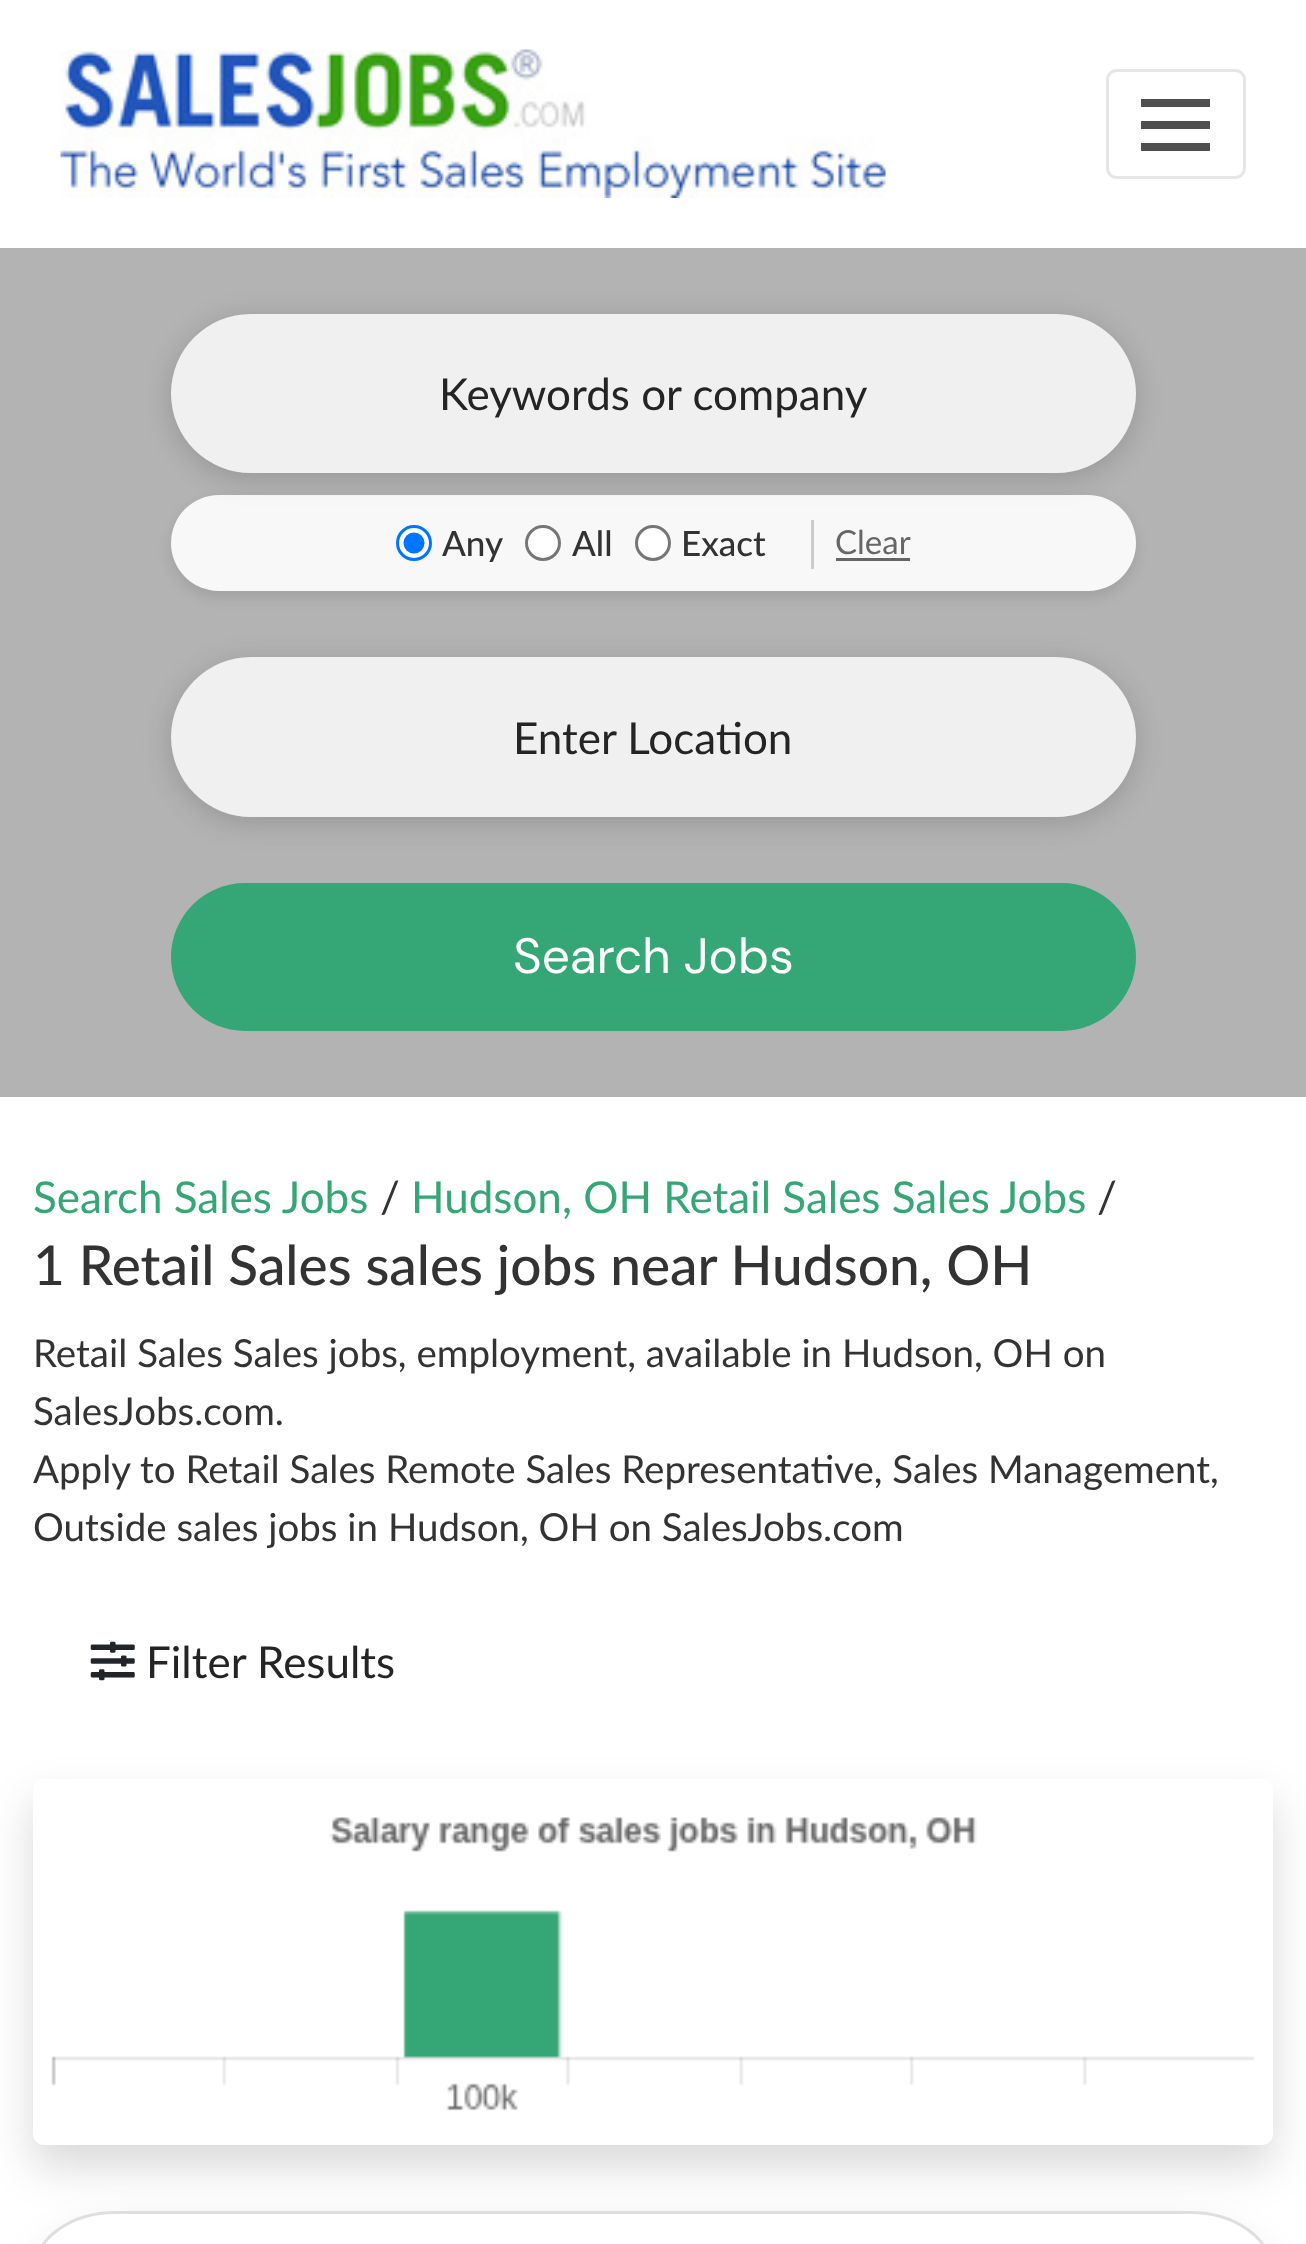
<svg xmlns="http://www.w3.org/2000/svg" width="1306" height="2244">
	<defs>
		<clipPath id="clip1"><path d="M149 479H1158V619H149ZM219 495H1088C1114.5 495 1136 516.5 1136 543C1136 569.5 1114.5 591 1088 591H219C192.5 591 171 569.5 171 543C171 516.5 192.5 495 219 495Z" clip-rule="evenodd" /></clipPath>
		<clipPath id="clip2"><path d="M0 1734H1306V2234H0ZM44 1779H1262C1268 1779 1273 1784 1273 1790V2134C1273 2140 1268 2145 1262 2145H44C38 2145 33 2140 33 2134V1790C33 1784 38 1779 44 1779Z" clip-rule="evenodd" /></clipPath>
	</defs>
	<rect width="100%" height="100%" fill="#FFFFFF" />
	<image x="60" y="49" width="826" height="149" href="assets/img1.png" />
	<rect x="1107.5" y="70.5" width="137" height="107" rx="9.5" fill="none" stroke="#E6E6E6" stroke-width="3" />
	<rect x="1141" y="99" width="69" height="8" fill="#4F4F4F" />
	<rect x="1141" y="121" width="69" height="8" fill="#4F4F4F" />
	<rect x="1141" y="143" width="69" height="8" fill="#4F4F4F" />
	<rect x="0" y="248" width="1306" height="849" fill="#B3B3B3" />
	<g clip-path="url(#clip1)">
		<rect x="171" y="501" width="965" height="96" rx="48" fill="#000000" fill-opacity="0.1" filter="blur(7px)" />
	</g>
	<rect x="171" y="495" width="965" height="96" rx="48" fill="#FFFFFF" fill-opacity="0.9" />
	<rect x="811" y="520" width="3" height="49" fill="#CCCCCC" />
	<rect x="171" y="319" width="965" height="160" rx="80" fill="#000000" fill-opacity="0.16" filter="blur(14px)" />
	<rect x="171" y="314" width="965" height="159" rx="79.5" fill="#F0F0F0" />
	<text x="439" y="410" font-family="Lato" font-size="44" fill="#242424">Keywords or company</text>
	<circle cx="414" cy="543" r="16.5" fill="#FFFFFF" stroke="#0075FF" stroke-width="3" />
	<circle cx="414" cy="543" r="10.5" fill="#0075FF" />
	<text x="442" y="556" font-family="Lato" font-size="35" font-weight="500" fill="#333333">Any</text>
	<circle cx="543" cy="543" r="16.5" fill="#FFFFFF" stroke="#767676" stroke-width="3" />
	<text x="572" y="556" font-family="Lato" font-size="35" font-weight="500" fill="#333333">All</text>
	<circle cx="653" cy="543" r="16.5" fill="#FFFFFF" stroke="#767676" stroke-width="3" />
	<text x="681" y="556" font-family="Lato" font-size="35" font-weight="500" fill="#333333">Exact</text>
	<text x="835" y="554" font-family="Lato" font-size="33" fill="#666666">Clear</text>
	<rect x="836" y="558" width="74" height="3" fill="#666666" />
	<rect x="171" y="663" width="965" height="159" rx="79.5" fill="#242424" fill-opacity="0.2" filter="blur(14px)" />
	<rect x="171" y="657" width="965" height="160" rx="80" fill="#F0F0F0" />
	<text x="513" y="754" font-family="Lato" font-size="44" fill="#242424">Enter Location</text>
	<rect x="171" y="883" width="965" height="148" rx="74" fill="#35A675" />
	<text x="513" y="973" font-family="DM Sans" font-size="49.5" fill="#FFFFFF">Search Jobs</text>
	<text x="33" y="1213" font-family="Lato" font-size="44" fill="#35A675">Search Sales Jobs</text>
	<text x="380" y="1213" font-family="Lato" font-size="44" fill="#333333">/</text>
	<text x="411" y="1213" font-family="Lato" font-size="44" fill="#35A675">Hudson, OH Retail Sales Sales Jobs</text>
	<text x="1097" y="1213" font-family="Lato" font-size="44" fill="#333333">/</text>
	<text x="33" y="1285" font-family="Lato" font-size="55" font-weight="500" fill="#333333">1 Retail Sales sales jobs near Hudson, OH</text>
	<g font-family="Lato" font-size="38.5" fill="#333333">
		<text x="33" y="1367">Retail Sales Sales jobs, employment, available in Hudson, OH on</text>
		<text x="33" y="1425">SalesJobs.com.</text>
		<text x="33" y="1483">Apply to Retail Sales Remote Sales Representative, Sales Management,</text>
		<text x="33" y="1541">Outside sales jobs in Hudson, OH on SalesJobs.com</text>
	</g>
	<image x="90" y="1641" width="45" height="40" href="assets/img2.png" />
	<text x="146" y="1678" font-family="Lato" font-size="44" fill="#242424">Filter Results</text>
	<g clip-path="url(#clip2)">
		<rect x="33" y="1801" width="1240" height="366" rx="11" fill="#000000" fill-opacity="0.15" filter="blur(22px)" />
	</g>
	<image x="51" y="1817" width="1204" height="294" href="assets/img3.png" />
	<rect x="33" y="2233" width="1240" height="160" rx="83" fill="#000000" fill-opacity="0.15" filter="blur(22px)" />
	<rect x="34.5" y="2212.5" width="1237" height="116" rx="81.5" fill="#FFFFFF" stroke="#DFDFDF" stroke-width="3" />
</svg>
